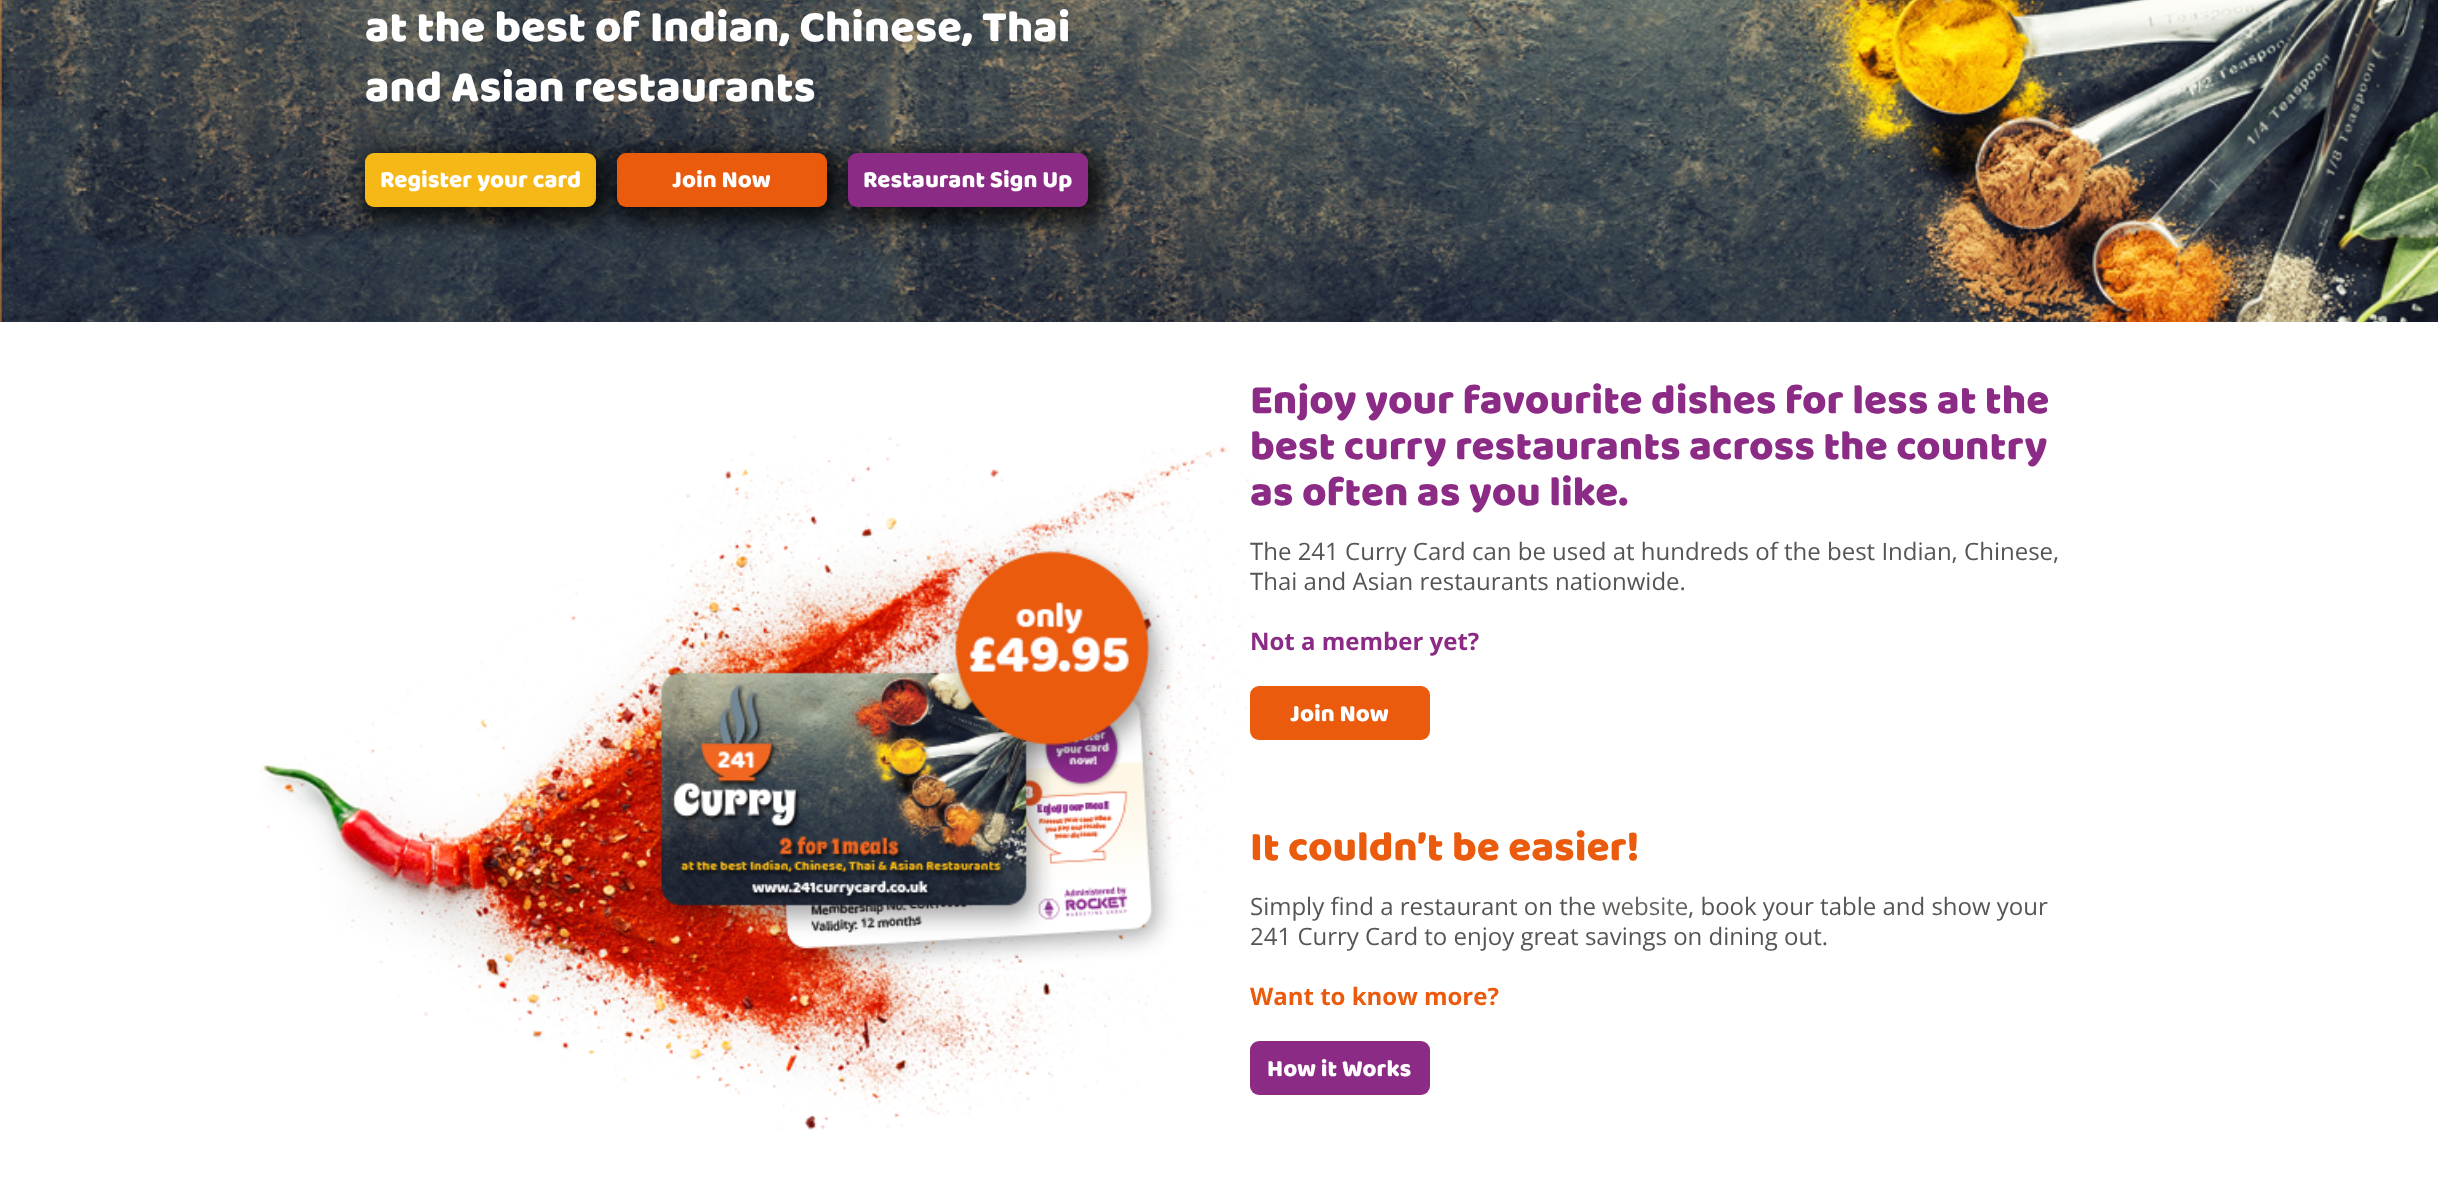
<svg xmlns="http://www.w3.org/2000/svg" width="2438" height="1189">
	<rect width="100%" height="100%" fill="#FFFFFF" />
	<image x="0" y="0" width="2438" height="322" href="assets/img1.png" />
	<g font-family="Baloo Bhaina" font-size="45" fill="#FFFFFF">
		<text x="365" y="41">at the best of Indian, Chinese, Thai</text>
		<text x="365" y="101">and Asian restaurants</text>
	</g>
	<rect x="365" y="153" width="246" height="69" rx="17" fill="#000000" fill-opacity="0.75" filter="blur(11px)" />
	<rect x="365" y="153" width="231" height="54" rx="9" fill="#F5B816" />
	<text x="380" y="187" font-family="Baloo Bhaina" font-size="24" fill="#FFFFFF">Register your card</text>
	<rect x="617" y="153" width="225" height="69" rx="17" fill="#000000" fill-opacity="0.75" filter="blur(11px)" />
	<rect x="617" y="153" width="210" height="54" rx="9" fill="#EA5B0D" />
	<text x="672" y="187" font-family="Baloo Bhaina" font-size="24" fill="#FFFFFF">Join Now</text>
	<rect x="848" y="153" width="255" height="69" rx="17" fill="#000000" fill-opacity="0.75" filter="blur(11px)" />
	<rect x="848" y="153" width="240" height="54" rx="9" fill="#8B2B86" />
	<text x="863" y="187" font-family="Baloo Bhaina" font-size="24" fill="#FFFFFF">Restaurant Sign Up</text>
	<image x="259" y="435" width="1000" height="695" href="assets/img2.png" />
	<g font-family="Baloo Bhaina" font-size="42" fill="#8B2B86">
		<text x="1250" y="413">Enjoy your favourite dishes for less at the</text>
		<text x="1250" y="459">best curry restaurants across the country</text>
		<text x="1250" y="505">as often as you like.</text>
	</g>
	<g font-family="Open Sans" font-size="24" fill="#555555">
		<text x="1250" y="560">The 241 Curry Card can be used at hundreds of the best Indian, Chinese,</text>
		<text x="1250" y="590">Thai and Asian restaurants nationwide.</text>
	</g>
	<text x="1250" y="650" font-family="Open Sans" font-size="24" font-weight="700" fill="#8B2B86">Not a member yet?</text>
	<rect x="1250" y="686" width="180" height="54" rx="9" fill="#EA5B0D" />
	<text x="1290" y="721" font-family="Baloo Bhaina" font-size="24" fill="#FFFFFF">Join Now</text>
	<text x="1250" y="860" font-family="Baloo Bhaina" font-size="42" fill="#EA5B0D">It couldn’t be easier!</text>
	<text x="1250" y="915" font-family="Open Sans" font-size="24" fill="#555555">Simply find a restaurant on the</text>
	<text x="1602" y="915" font-family="Open Sans" font-size="24" fill="#666460">website</text>
	<g font-family="Open Sans" font-size="24" fill="#555555">
		<text x="1688" y="915">, book your table and show your</text>
		<text x="1250" y="945">241 Curry Card to enjoy great savings on dining out.</text>
	</g>
	<text x="1250" y="1005" font-family="Open Sans" font-size="24" font-weight="700" fill="#EA5B0D">Want to know more?</text>
	<rect x="1250" y="1041" width="180" height="54" rx="9" fill="#8B2B86" />
	<text x="1267" y="1076" font-family="Baloo Bhaina" font-size="24" fill="#FFFFFF">How it Works</text>
</svg>
